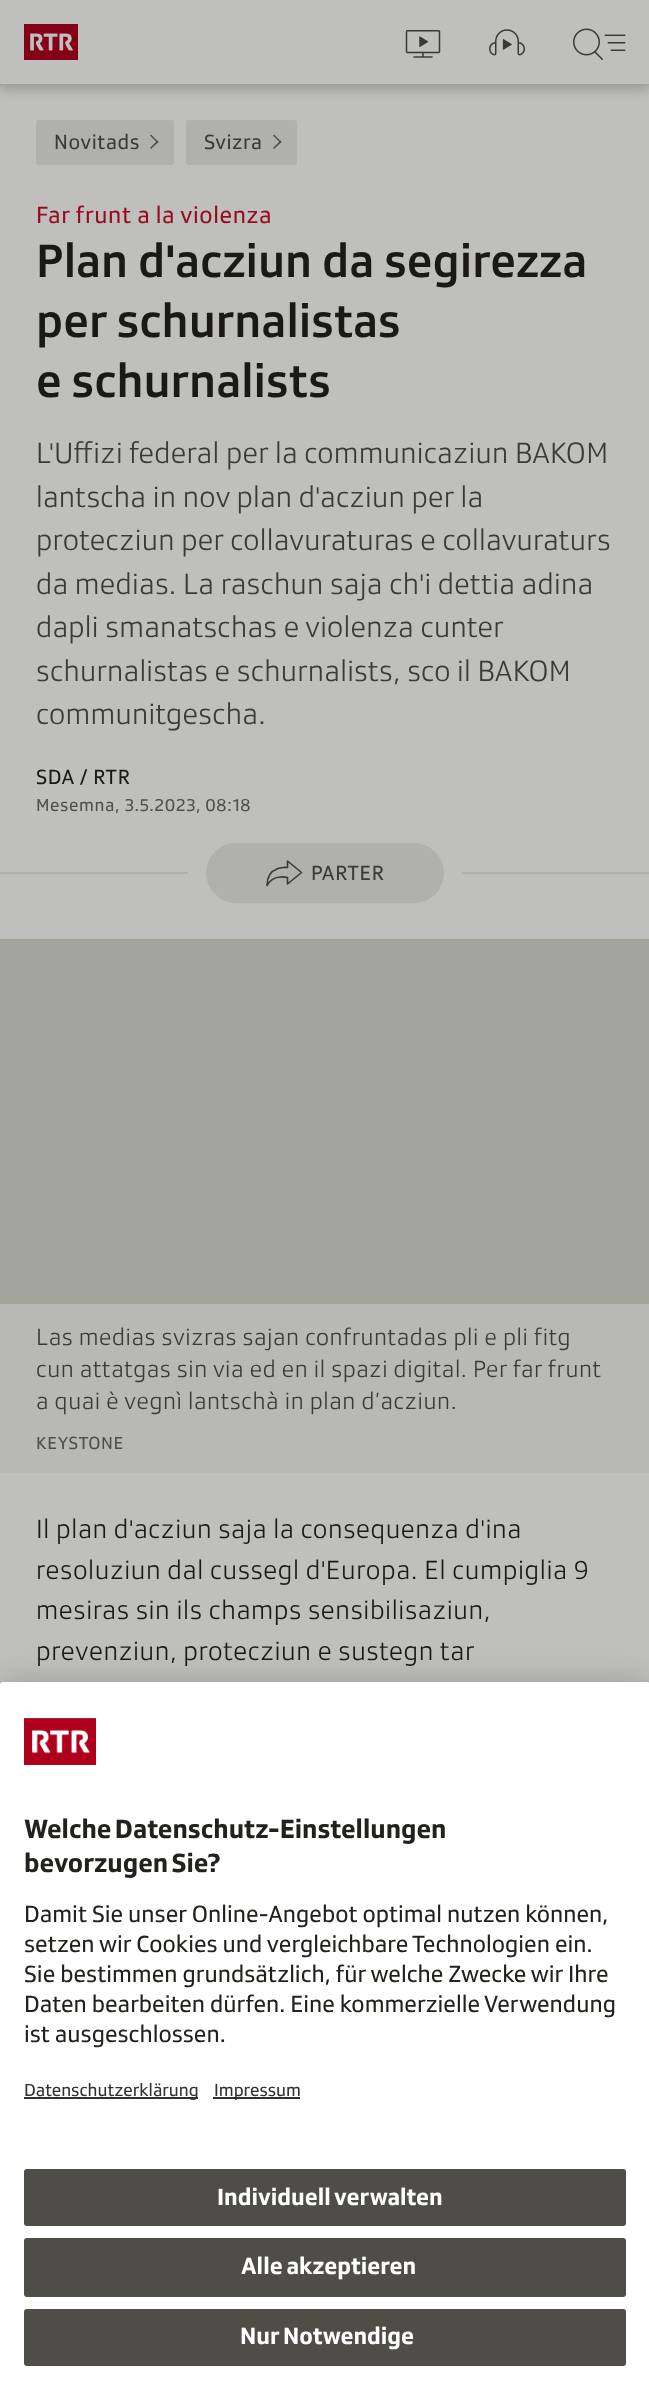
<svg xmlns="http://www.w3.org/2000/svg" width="649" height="2407">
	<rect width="100%" height="100%" fill="#B8B8B6" />
	<rect x="0" y="84" width="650" height="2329" rx="3" fill="#000000" fill-opacity="0.08" filter="blur(1px)" />
	<rect x="0" y="84" width="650" height="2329" rx="3" fill="#000000" fill-opacity="0.16" filter="blur(1px)" />
	<rect x="0" y="84" width="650" height="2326" rx="3" fill="#BFBFBE" />
	<rect x="0" y="21" width="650" height="63" fill="#000000" fill-opacity="0.08" filter="blur(6px)" />
	<rect x="0" y="27" width="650" height="63" fill="#000000" fill-opacity="0.16" filter="blur(6px)" />
	<rect x="0" y="0" width="649" height="84" fill="#BFBFBE" />
	<image x="24" y="24" width="54" height="36" href="assets/img1.png" />
	<image x="405" y="30" width="36" height="28" href="assets/img2.png" />
	<image x="489" y="29" width="36" height="27" href="assets/img3.png" />
	<image x="573" y="28" width="53" height="32" href="assets/img4.png" />
	<rect x="36" y="120" width="138" height="45" rx="3" fill="#B0B0AC" />
	<text x="54" y="149" font-family="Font" font-size="21" letter-spacing="0.6" fill="#3B3A35">Novitads</text>
	<path d="M150 135.5L151 134.5L158.5 142L157.5 143Z" fill="#504F48" />
	<path d="M150 148L157.5 140.5L158.5 142L151 149Z" fill="#504F48" />
	<rect x="186" y="120" width="111" height="45" rx="3" fill="#B0B0AC" />
	<text x="204" y="149" font-family="Font" font-size="21" letter-spacing="0.6" fill="#3B3A35">Svizra</text>
	<path d="M273 135.5L274 134.5L281.5 142L280.5 143Z" fill="#504F48" />
	<path d="M273 148L280.5 140.5L281.5 142L274 149Z" fill="#504F48" />
	<text x="36" y="223" font-family="Font" font-size="24" letter-spacing="0.6" fill="#970C1B">Far frunt a la violenza</text>
	<g font-family="Font" font-size="48" font-weight="500" fill="#1A1916">
		<text x="36" y="277">Plan d'acziun da segirezza</text>
		<text x="36" y="337">per schurnalistas</text>
		<text x="36" y="397">e schurnalists</text>
	</g>
	<g font-family="Font" font-size="30" font-weight="300" letter-spacing="0.3" fill="#3B3A35">
		<text x="36" y="463">L'Uffizi federal per la communicaziun BAKOM</text>
		<text x="36" y="507">lantscha in nov plan d'acziun per la</text>
		<text x="36" y="550">protecziun per collavuraturas e collavuraturs</text>
		<text x="36" y="594">da medias. La raschun saja ch'i dettia adina</text>
		<text x="36" y="637">dapli smanatschas e violenza cunter</text>
		<text x="36" y="681">schurnalistas e schurnalists, sco il BAKOM</text>
		<text x="36" y="724">communitgescha.</text>
	</g>
	<text x="36" y="784" font-family="Font" font-size="21" letter-spacing="0.6" fill="#1A1916">SDA / RTR</text>
	<text x="36" y="811" font-family="Font" font-size="18" letter-spacing="0.6" fill="#504F48">Mesemna, 3.5.2023, 08:18</text>
	<rect x="0" y="872" width="649" height="2" fill="#B0B0AC" />
	<rect x="188" y="872" width="274" height="2" fill="#BFBFBE" />
	<rect x="206" y="843" width="238" height="60" rx="30" fill="#B0B0AC" />
	<path d="M287.5 867.5C287.5 867.5 267 865 267 885.5C273.5 873.5 287.5 877.5 287.5 877.5V884L301.5 872.5L287.5 861Z" fill="none" stroke="#3B3A35" stroke-width="1.6" stroke-linejoin="round" />
	<text x="311" y="880" font-family="Font" font-size="21" letter-spacing="0.6" fill="#3B3A35">PARTER</text>
	<rect x="0" y="939" width="649" height="365" fill="#A4A49E" />
	<rect x="0" y="1304" width="649" height="169" fill="#B8B8B6" />
	<g font-family="Font" font-size="24" font-weight="300" letter-spacing="0.6" fill="#3B3A35">
		<text x="36" y="1345">Las medias svizras sajan confruntadas pli e pli fitg</text>
		<text x="36" y="1377">cun attatgas sin via ed en il spazi digital. Per far frunt</text>
		<text x="36" y="1409">a quai è vegnì lantschà in plan d’acziun.</text>
	</g>
	<text x="36" y="1449" font-family="Font" font-size="18" letter-spacing="0.6" fill="#504F48">KEYSTONE</text>
	<g font-family="Font" font-size="27" font-weight="300" letter-spacing="0.6" fill="#1A1916">
		<text x="36" y="1538">Il plan d'acziun saja la consequenza d'ina</text>
		<text x="36" y="1579">resoluziun dal cussegl d'Europa. El cumpiglia 9</text>
		<text x="36" y="1619">mesiras sin ils champs sensibilisaziun,</text>
		<text x="36" y="1660">prevenziun, protecziun e sustegn tar</text>
	</g>
	<rect x="0" y="1712" width="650" height="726" rx="3" fill="#000000" fill-opacity="0.3" filter="blur(21px)" />
	<rect x="0" y="1689" width="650" height="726" rx="3" fill="#000000" fill-opacity="0.22" filter="blur(19.5px)" />
	<path d="M3 1682H647C648.5 1682 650 1683.5 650 1685V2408H0V1685C0 1683.5 1.5 1682 3 1682Z" fill="#FFFFFF" />
	<path d="M3 1682H647C648.5 1682 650 1683.5 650 1685V2151H0V1685C0 1683.5 1.5 1682 3 1682Z" fill="#FFFFFF" />
	<image x="24" y="1718" width="72" height="47" href="assets/img5.png" />
	<g font-family="Font" font-size="27" font-weight="700" fill="#22211D">
		<text x="24" y="1838" word-spacing="-2">Welche Datenschutz-Einstellungen</text>
		<text x="24" y="1872" word-spacing="-2">bevorzugen Sie?</text>
	</g>
	<g font-family="Font" font-size="24" fill="#22211D">
		<text x="24" y="1922">Damit Sie unser Online-Angebot optimal nutzen können,</text>
		<text x="24" y="1952">setzen wir Cookies und vergleichbare Technologien ein.</text>
		<text x="24" y="1982">Sie bestimmen grundsätzlich, für welche Zwecke wir Ihre</text>
		<text x="24" y="2012">Daten bearbeiten dürfen. Eine kommerzielle Verwendung</text>
		<text x="24" y="2042">ist ausgeschlossen.</text>
	</g>
	<rect x="24" y="2097" width="174" height="2" fill="#303030" />
	<text x="24" y="2096" font-family="Font" font-size="18" fill="#303030">Datenschutzerklärung</text>
	<rect x="213" y="2097" width="87" height="2" fill="#303030" />
	<text x="214" y="2096" font-family="Font" font-size="18" fill="#303030">Impressum</text>
	<rect x="24" y="2169" width="602" height="57" rx="3" fill="#4E4D47" />
	<text x="217" y="2205" word-spacing="-1" font-family="Font" font-size="24" font-weight="700" fill="#FFFFFF">Individuell verwalten</text>
	<rect x="24" y="2238" width="602" height="59" rx="3" fill="#4E4D47" />
	<text x="241" y="2274" word-spacing="-1" font-family="Font" font-size="24" font-weight="700" fill="#FFFFFF">Alle akzeptieren</text>
	<rect x="24" y="2309" width="602" height="57" rx="3" fill="#4E4D47" />
	<text x="240" y="2344" word-spacing="-1" font-family="Font" font-size="24" font-weight="700" fill="#FFFFFF">Nur Notwendige</text>
</svg>
